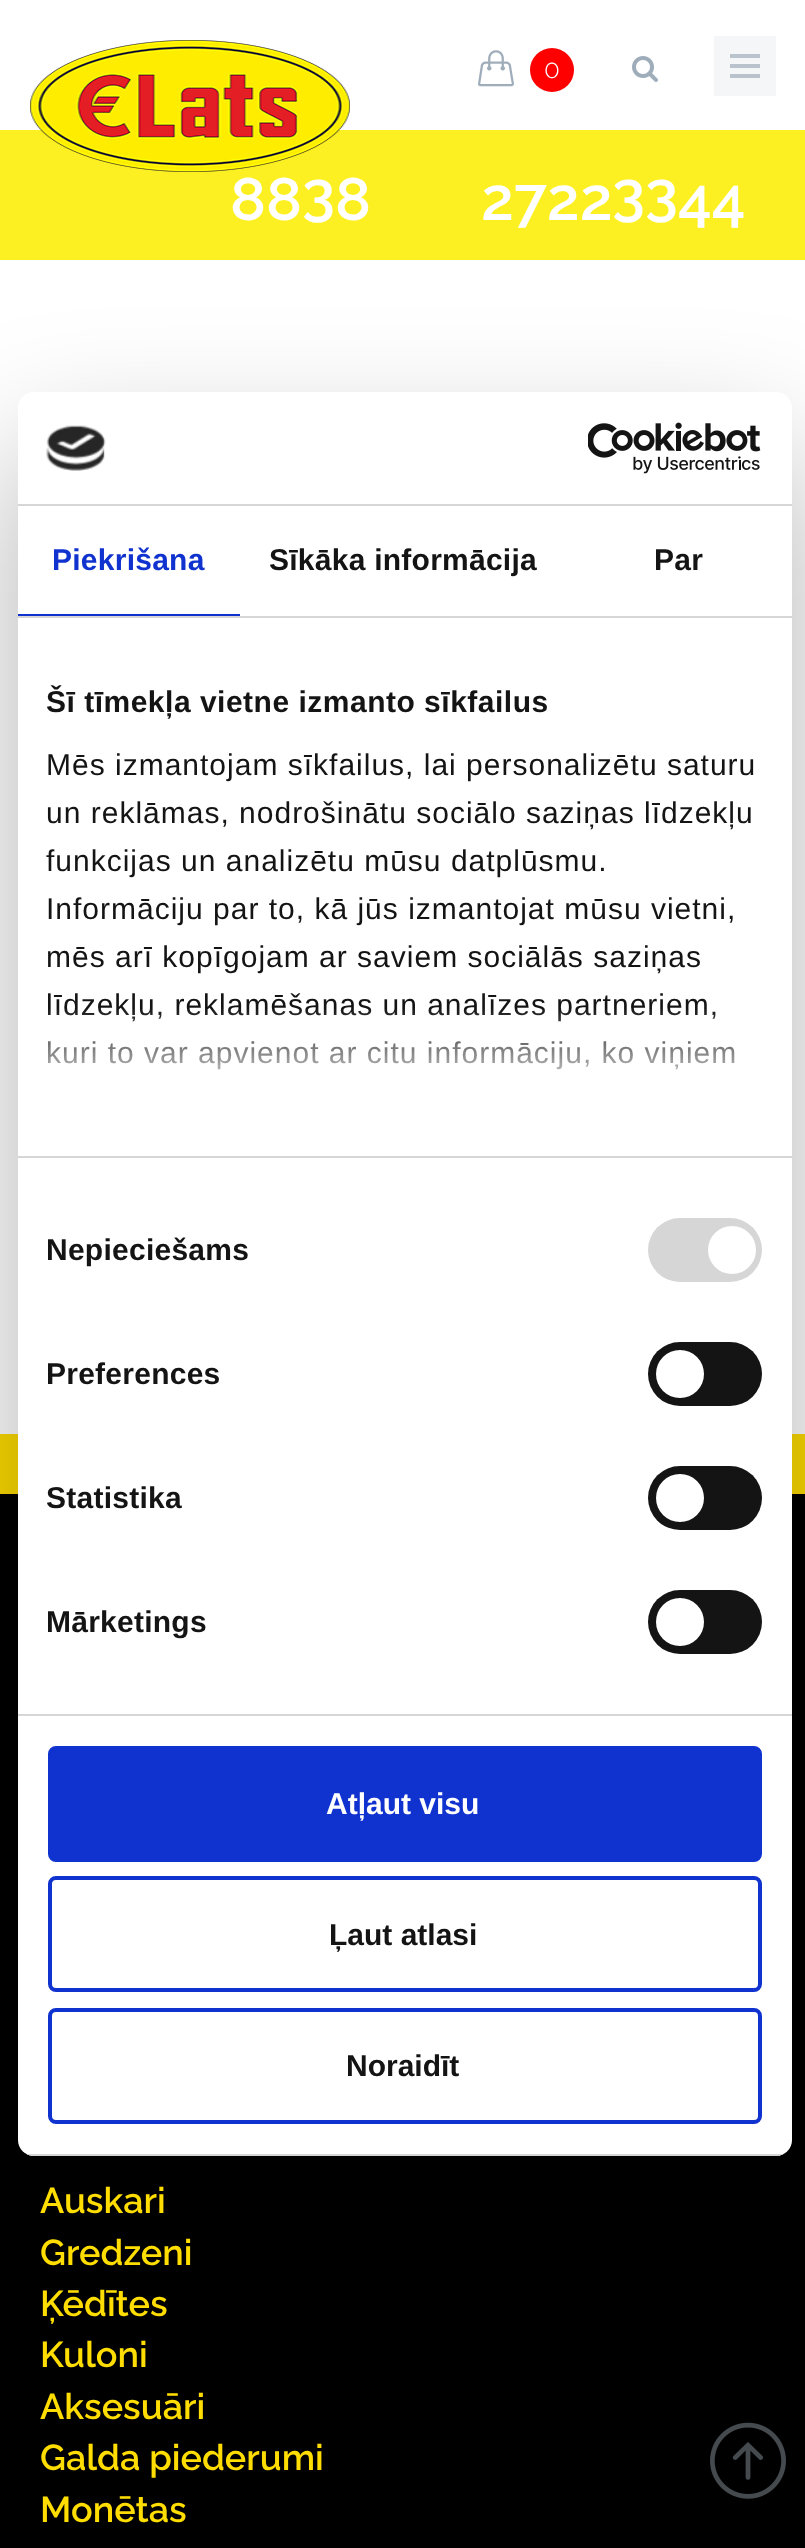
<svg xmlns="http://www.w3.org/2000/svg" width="805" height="2548">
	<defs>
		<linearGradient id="g1" gradientUnits="userSpaceOnUse" x1="391" y1="1157" x2="391" y2="1007"><stop offset="0" stop-color="#FFFFFF" /><stop offset="0.5" stop-color="#FFFFFF" stop-opacity="0.8" /><stop offset="1" stop-color="#FFFFFF" stop-opacity="0" /></linearGradient>
		<clipPath id="clip1"><rect x="18" y="392" width="774" height="1764" rx="16" /></clipPath>
	</defs>
	<rect width="100%" height="100%" fill="#FFFFFF" />
	<rect x="0" y="130" width="805" height="130" fill="#FCF022" />
	<image x="30" y="40" width="320" height="132" href="assets/img1.png" />
	<image x="478" y="50" width="36" height="37" href="assets/img2.png" />
	<circle cx="552" cy="70" r="22" fill="#FF0000" />
	<text x="544" y="78" font-family="Raleway" font-size="26" font-weight="300" fill="#FFFFFF">0</text>
	<image x="632" y="56" width="26" height="26" href="assets/img3.png" />
	<rect x="714" y="36" width="62" height="60" fill="#F5F6F8" />
	<rect x="730" y="54" width="30" height="4" fill="#BAC3CD" />
	<rect x="730" y="64" width="30" height="4" fill="#BAC3CD" />
	<rect x="730" y="74" width="30" height="4" fill="#BAC3CD" />
	<g font-family="Raleway" font-size="60" font-weight="600" fill="#FFFFFF">
		<text x="230" y="220">88</text>
		<text x="302" y="214">3</text>
		<text x="335" y="220">8</text>
		<text x="481" y="220">2722</text>
		<text x="612" y="214">33</text>
		<text x="678" y="220">44</text>
	</g>
	<rect x="0" y="1434" width="805" height="60" fill="#FFDD00" />
	<rect x="0" y="1494" width="805" height="1054" fill="#000000" />
	<image x="710" y="2422" width="76" height="77" href="assets/img6.png" />
	<rect x="18" y="456" width="774" height="1764" rx="16" fill="#000000" fill-opacity="0.3" filter="blur(68px)" />
	<rect x="18" y="392" width="774" height="1764" rx="16" fill="#FFFFFF" />
	<rect x="18" y="504" width="774" height="2" fill="#D6D6D6" />
	<image x="46" y="425" width="60" height="46" href="assets/img4.png" />
	<image x="588" y="422" width="173" height="52" href="assets/img5.png" />
	<rect x="18" y="616" width="774" height="2" fill="#D6D6D6" />
	<rect x="18" y="614" width="222" height="2" fill="#1032CF" />
	<text x="52" y="570" font-family="Liberation Sans" font-size="30" font-weight="700" letter-spacing="0.25" fill="#1032CF">Piekrišana</text>
	<g font-family="Liberation Sans" font-size="30" font-weight="700" letter-spacing="0.25" fill="#141414">
		<text x="269" y="570">Sīkāka informācija</text>
		<text x="654" y="570">Par</text>
	</g>
	<rect x="18" y="1156" width="774" height="2" fill="#D6D6D6" />
	<text x="46" y="712" font-family="Liberation Sans" font-size="30" font-weight="700" letter-spacing="0.5" fill="#141414">Šī tīmekļa vietne izmanto sīkfailus</text>
	<g font-family="Liberation Sans" font-size="30" letter-spacing="1" fill="#141414">
		<text x="46" y="775">Mēs izmantojam sīkfailus, lai personalizētu saturu</text>
		<text x="46" y="823">un reklāmas, nodrošinātu sociālo saziņas līdzekļu</text>
		<text x="46" y="871">funkcijas un analizētu mūsu datplūsmu.</text>
		<text x="46" y="919">Informāciju par to, kā jūs izmantojat mūsu vietni,</text>
		<text x="46" y="967">mēs arī kopīgojam ar saviem sociālās saziņas</text>
		<text x="46" y="1015">līdzekļu, reklamēšanas un analīzes partneriem,</text>
		<text x="46" y="1063">kuri to var apvienot ar citu informāciju, ko viņiem</text>
	</g>
	<rect x="48" y="1009" width="687" height="61" fill="url(#g1)" />
	<rect x="18" y="1714" width="774" height="2" fill="#D6D6D6" />
	<text x="46" y="1260" font-family="Liberation Sans" font-size="30" font-weight="700" letter-spacing="0.25" fill="#141414">Nepieciešams</text>
	<rect x="648" y="1218" width="114" height="64" rx="32" fill="#D6D6D6" />
	<circle cx="732" cy="1250" r="24" fill="#FFFFFF" />
	<text x="46" y="1384" font-family="Liberation Sans" font-size="30" font-weight="700" letter-spacing="0.25" fill="#141414">Preferences</text>
	<rect x="648" y="1342" width="114" height="64" rx="32" fill="#141414" />
	<circle cx="680" cy="1374" r="24" fill="#FFFFFF" />
	<text x="46" y="1508" font-family="Liberation Sans" font-size="30" font-weight="700" letter-spacing="0.25" fill="#141414">Statistika</text>
	<rect x="648" y="1466" width="114" height="64" rx="32" fill="#141414" />
	<circle cx="680" cy="1498" r="24" fill="#FFFFFF" />
	<text x="46" y="1632" font-family="Liberation Sans" font-size="30" font-weight="700" letter-spacing="0.25" fill="#141414">Mārketings</text>
	<rect x="648" y="1590" width="114" height="64" rx="32" fill="#141414" />
	<circle cx="680" cy="1622" r="24" fill="#FFFFFF" />
	<g clip-path="url(#clip1)">
		<rect x="18" y="2154" width="774" height="2" fill="#D6D6D6" />
	</g>
	<rect x="50" y="1748" width="710" height="112" rx="6" fill="#1032CF" stroke="#1032CF" stroke-width="4" />
	<text x="326" y="1814" font-family="Liberation Sans" font-size="30" font-weight="700" fill="#FFFFFF">Atļaut visu</text>
	<rect x="50" y="1878" width="710" height="112" rx="6" fill="none" stroke="#1032CF" stroke-width="4" />
	<text x="329" y="1945" font-family="Liberation Sans" font-size="30" font-weight="700" fill="#141414">Ļaut atlasi</text>
	<rect x="50" y="2010" width="710" height="112" rx="6" fill="none" stroke="#1032CF" stroke-width="4" />
	<text x="346" y="2076" font-family="Liberation Sans" font-size="30" font-weight="700" fill="#141414">Noraidīt</text>
	<g font-family="Raleway" font-size="36" font-weight="600" fill="#FFDD00">
		<text x="40" y="2213">Auskari</text>
		<text x="40" y="2265">Gredzeni</text>
		<text x="40" y="2316">Ķēdītes</text>
		<text x="40" y="2367">Kuloni</text>
		<text x="40" y="2419">Aksesuāri</text>
		<text x="40" y="2470">Galda piederumi</text>
		<text x="40" y="2522">Monētas</text>
	</g>
</svg>
